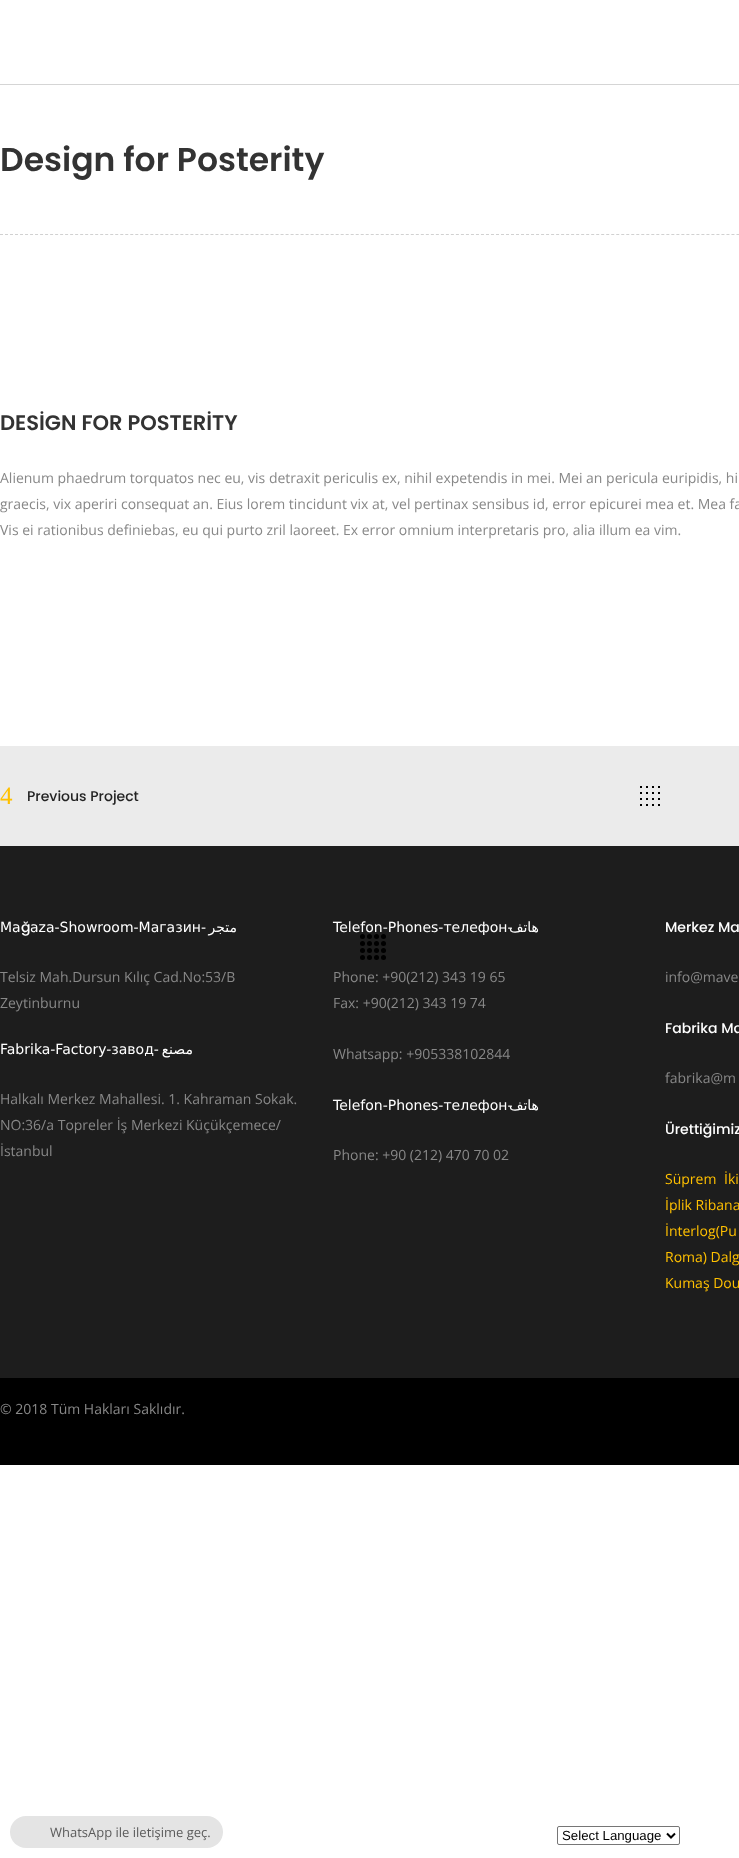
<svg xmlns="http://www.w3.org/2000/svg" width="739" height="1858">
	<rect width="100%" height="100%" fill="#FFFFFF" />
	<rect x="0" y="84" width="739" height="1" fill="#D5D5D5" />
	<path d="M0 234.5H739" fill="none" stroke="#D1D1D1" stroke-dasharray="3 2.01" />
	<text x="0" y="171" font-family="Poppins" font-size="33" font-weight="600" fill="#333333">Design for Posterity</text>
	<text x="0" y="430" font-family="Poppins" font-size="21" font-weight="600" fill="#333333">DESİGN FOR POSTERİTY</text>
	<g font-family="Open Sans" font-size="14" fill="#888888">
		<text x="0" y="483">Alienum phaedrum torquatos nec eu, vis detraxit periculis ex, nihil expetendis in mei. Mei an pericula euripidis, hi</text>
		<text x="0" y="509">graecis, vix aperiri consequat an. Eius lorem tincidunt vix at, vel pertinax sensibus id, error epicurei mea et. Mea fa</text>
		<text x="0" y="535">Vis ei rationibus definiebas, eu qui purto zril laoreet. Ex error omnium interpretaris pro, alia illum ea vim.</text>
	</g>
	<rect x="0" y="746" width="739" height="100" fill="#EBEBEB" />
	<text x="0" y="804" font-family="Liberation Serif" font-size="25" fill="#FFC000">4</text>
	<text x="27" y="801" font-family="Poppins" font-size="14" font-weight="500" fill="#232323">Previous Project</text>
	<rect x="640" y="786" width="2" height="2" fill="#000000" />
	<rect x="646" y="786" width="2" height="2" fill="#000000" />
	<rect x="652" y="786" width="2" height="2" fill="#000000" />
	<rect x="658" y="786" width="2" height="2" fill="#000000" />
	<rect x="640" y="792" width="2" height="2" fill="#000000" />
	<rect x="646" y="792" width="2" height="2" fill="#000000" />
	<rect x="652" y="792" width="2" height="2" fill="#000000" />
	<rect x="658" y="792" width="2" height="2" fill="#000000" />
	<rect x="640" y="798" width="2" height="2" fill="#000000" />
	<rect x="646" y="798" width="2" height="2" fill="#000000" />
	<rect x="652" y="798" width="2" height="2" fill="#000000" />
	<rect x="658" y="798" width="2" height="2" fill="#000000" />
	<rect x="640" y="804" width="2" height="2" fill="#000000" />
	<rect x="646" y="804" width="2" height="2" fill="#000000" />
	<rect x="652" y="804" width="2" height="2" fill="#000000" />
	<rect x="658" y="804" width="2" height="2" fill="#000000" />
	<rect x="0" y="846" width="739" height="532" fill="#1D1D1D" />
	<text x="0" y="932" font-family="DejaVu Sans" font-size="14" fill="#FFFFFF">Ma</text>
	<text x="21" y="932" font-family="Poppins" font-size="14" font-weight="500" fill="#FFFFFF">ğ</text>
	<text x="30" y="932" font-family="DejaVu Sans" font-size="14" fill="#FFFFFF">aza-Showroom-Mагазин-</text>
	<text x="237" y="932" font-family="DejaVu Sans" font-size="14" direction="rtl" fill="#FFFFFF">متجر</text>
	<g font-family="Open Sans" font-size="14" fill="#888888">
		<text x="0" y="982">Telsiz Mah.Dursun Kılıç Cad.No:53/B</text>
		<text x="0" y="1008">Zeytinburnu</text>
	</g>
	<text x="0" y="1054" font-family="DejaVu Sans" font-size="14" fill="#FFFFFF">Fabrika-Factory-завод-</text>
	<text x="193" y="1054" font-family="DejaVu Sans" font-size="14" direction="rtl" fill="#FFFFFF">مصنع</text>
	<g font-family="Open Sans" font-size="14" fill="#888888">
		<text x="0" y="1104">Halkalı Merkez Mahallesi. 1. Kahraman Sokak.</text>
		<text x="0" y="1130">NO:36/a Topreler İş Merkezi Küçükçemece/</text>
		<text x="0" y="1156">İstanbul</text>
	</g>
	<text x="333" y="932" font-family="DejaVu Sans" font-size="14" fill="#FFFFFF">Telefon-Phones-телефон-</text>
	<text x="539" y="932" font-family="DejaVu Sans" font-size="14" direction="rtl" fill="#FFFFFF">هاتف</text>
	<g font-family="Open Sans" font-size="14" fill="#888888">
		<text x="333" y="982">Phone: +90(212) 343 19 65</text>
		<text x="333" y="1008">Fax: +90(212) 343 19 74</text>
		<text x="333" y="1059">Whatsapp: +905338102844</text>
	</g>
	<text x="333" y="1110" font-family="DejaVu Sans" font-size="14" fill="#FFFFFF">Telefon-Phones-телефон-</text>
	<text x="539" y="1110" font-family="DejaVu Sans" font-size="14" direction="rtl" fill="#FFFFFF">هاتف</text>
	<text x="333" y="1160" font-family="Open Sans" font-size="14" fill="#888888">Phone: +90 (212) 470 70 02</text>
	<text x="665" y="932" font-family="Poppins" font-size="14" font-weight="500" fill="#FFFFFF">Merkez Ma</text>
	<text x="665" y="982" font-family="Open Sans" font-size="14" fill="#888888">info@mave</text>
	<text x="665" y="1033" font-family="Poppins" font-size="14" font-weight="500" fill="#FFFFFF">Fabrika Ma</text>
	<text x="665" y="1083" font-family="Open Sans" font-size="14" fill="#888888">fabrika@m</text>
	<text x="665" y="1134" font-family="Poppins" font-size="14" font-weight="500" fill="#FFFFFF">Ürettiğimiz</text>
	<g font-family="Open Sans" font-size="14" fill="#FFC000">
		<text x="665" y="1184">Süprem</text>
		<text x="724" y="1184">İki</text>
		<text x="665" y="1210">İplik Ribana</text>
		<text x="665" y="1236">İnterlog(Pu</text>
		<text x="665" y="1262">Roma) Dalg</text>
		<text x="665" y="1288">Kumaş Dou</text>
	</g>
	<rect x="0" y="1378" width="739" height="87" fill="#000000" />
	<text x="0" y="1414" font-family="Open Sans" font-size="14" fill="#888888">© 2018 Tüm Hakları Saklıdır.</text>
	<circle cx="362.5" cy="936.5" r="2.5" fill="#000000" />
	<circle cx="369.5" cy="936.5" r="2.5" fill="#000000" />
	<circle cx="376.5" cy="936.5" r="2.5" fill="#000000" />
	<circle cx="383.5" cy="936.5" r="2.5" fill="#000000" />
	<circle cx="362.5" cy="943.5" r="2.5" fill="#000000" />
	<circle cx="369.5" cy="943.5" r="2.5" fill="#000000" />
	<circle cx="376.5" cy="943.5" r="2.5" fill="#000000" />
	<circle cx="383.5" cy="943.5" r="2.5" fill="#000000" />
	<circle cx="362.5" cy="950.5" r="2.5" fill="#000000" />
	<circle cx="369.5" cy="950.5" r="2.5" fill="#000000" />
	<circle cx="376.5" cy="950.5" r="2.5" fill="#000000" />
	<circle cx="383.5" cy="950.5" r="2.5" fill="#000000" />
	<circle cx="362.5" cy="957.5" r="2.5" fill="#000000" />
	<circle cx="369.5" cy="957.5" r="2.5" fill="#000000" />
	<circle cx="376.5" cy="957.5" r="2.5" fill="#000000" />
	<circle cx="383.5" cy="957.5" r="2.5" fill="#000000" />
	<rect x="10" y="1816" width="213" height="32" rx="16" fill="#E4E4E4" />
	<text x="50" y="1837" font-family="Open Sans" font-size="13" fill="#5B5B5B">WhatsApp ile iletişime geç.</text>
	<rect x="557.5" y="1826.5" width="122" height="18" rx="1.5" fill="none" stroke="#767676" />
	<path d="M667 1833.5L671 1837.5L675 1833.5" fill="none" stroke="#000000" stroke-width="2" />
	<text x="562" y="1840" font-family="Liberation Sans" font-size="13.25" fill="#000000">Select Language</text>
</svg>
